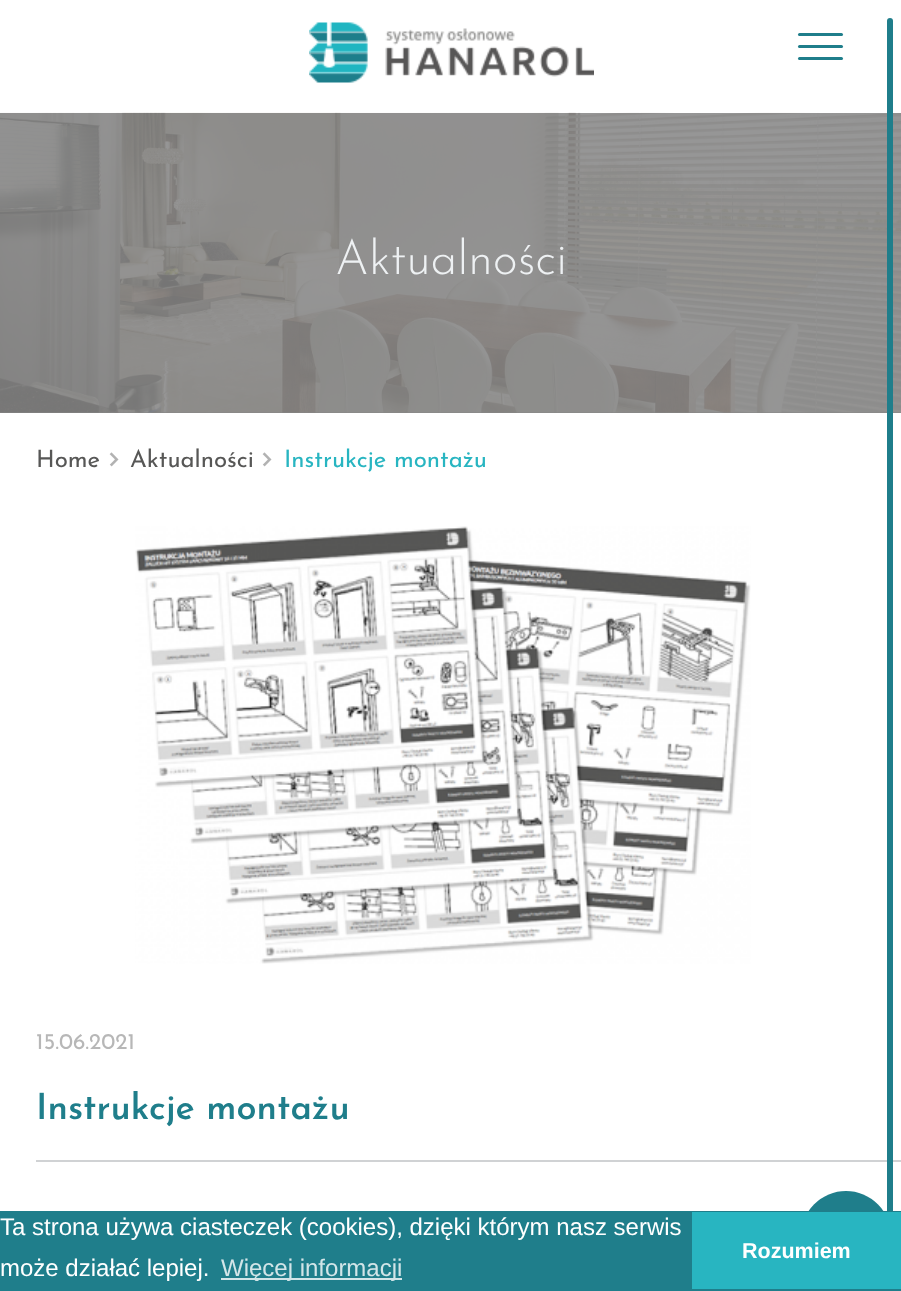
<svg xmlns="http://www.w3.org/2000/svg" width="901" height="1291">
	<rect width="100%" height="100%" fill="#FFFFFF" />
	<rect x="798" y="45" width="45" height="3" rx="1.5" fill="#1F7E8B" />
	<rect x="798" y="33" width="45" height="3" rx="1.5" fill="#1F7E8B" />
	<rect x="798" y="57" width="45" height="3" rx="1.5" fill="#1F7E8B" />
	<rect x="0" y="113" width="901" height="300" fill="#878787" />
	<image x="309" y="22" width="285" height="61" href="assets/img1.png" />
	<image x="0" y="112" width="901" height="301" href="assets/img2.png" />
	<text x="335" y="274" font-family="Josefin Sans" font-size="48" font-weight="300" fill="#EEF1F3">Aktualności</text>
	<text x="36" y="467" font-family="Josefin Sans" font-size="24" fill="#575756">Home</text>
	<image x="109" y="452" width="10" height="15" href="assets/img3.png" />
	<text x="130" y="467" font-family="Josefin Sans" font-size="24" fill="#575756">Aktualności</text>
	<image x="262" y="452" width="10" height="15" href="assets/img3.png" />
	<text x="284" y="467" font-family="Josefin Sans" font-size="24" fill="#28B5C1">Instrukcje montażu</text>
	<image x="135" y="526" width="616" height="438" href="assets/img4.png" />
	<text x="36" y="1049" font-family="Josefin Sans" font-size="22.5" fill="#B7B7B7">15.06.2021</text>
	<text x="36" y="1119" font-family="Josefin Sans" font-size="36" font-weight="600" fill="#1F7E8B">Instrukcje montażu</text>
	<rect x="36" y="1160" width="865" height="2" fill="#D0D2D4" />
	<rect x="887" y="18" width="6" height="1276" rx="3" fill="#1F7E8B" />
	<circle cx="846" cy="1236" r="45" fill="#1F7E8B" />
	<rect x="0" y="1211" width="901" height="80" fill="#1F7E8B" />
	<g font-family="Liberation Sans" font-size="24" fill="#FFFFFF">
		<text x="0" y="1235">Ta strona używa ciasteczek (cookies), dzięki którym nasz serwis</text>
		<text x="0" y="1276">może działać lepiej.</text>
	</g>
	<rect x="221" y="1278" width="181" height="2" fill="#D2E5E8" />
	<text x="221" y="1276" font-family="Liberation Sans" font-size="24" fill="#D2E5E8">Więcej informacji</text>
	<rect x="692" y="1212" width="209" height="77" fill="#28B5C1" />
	<text x="742" y="1258" font-family="Liberation Sans" font-size="21.5" font-weight="700" fill="#FFFFFF">Rozumiem</text>
</svg>
